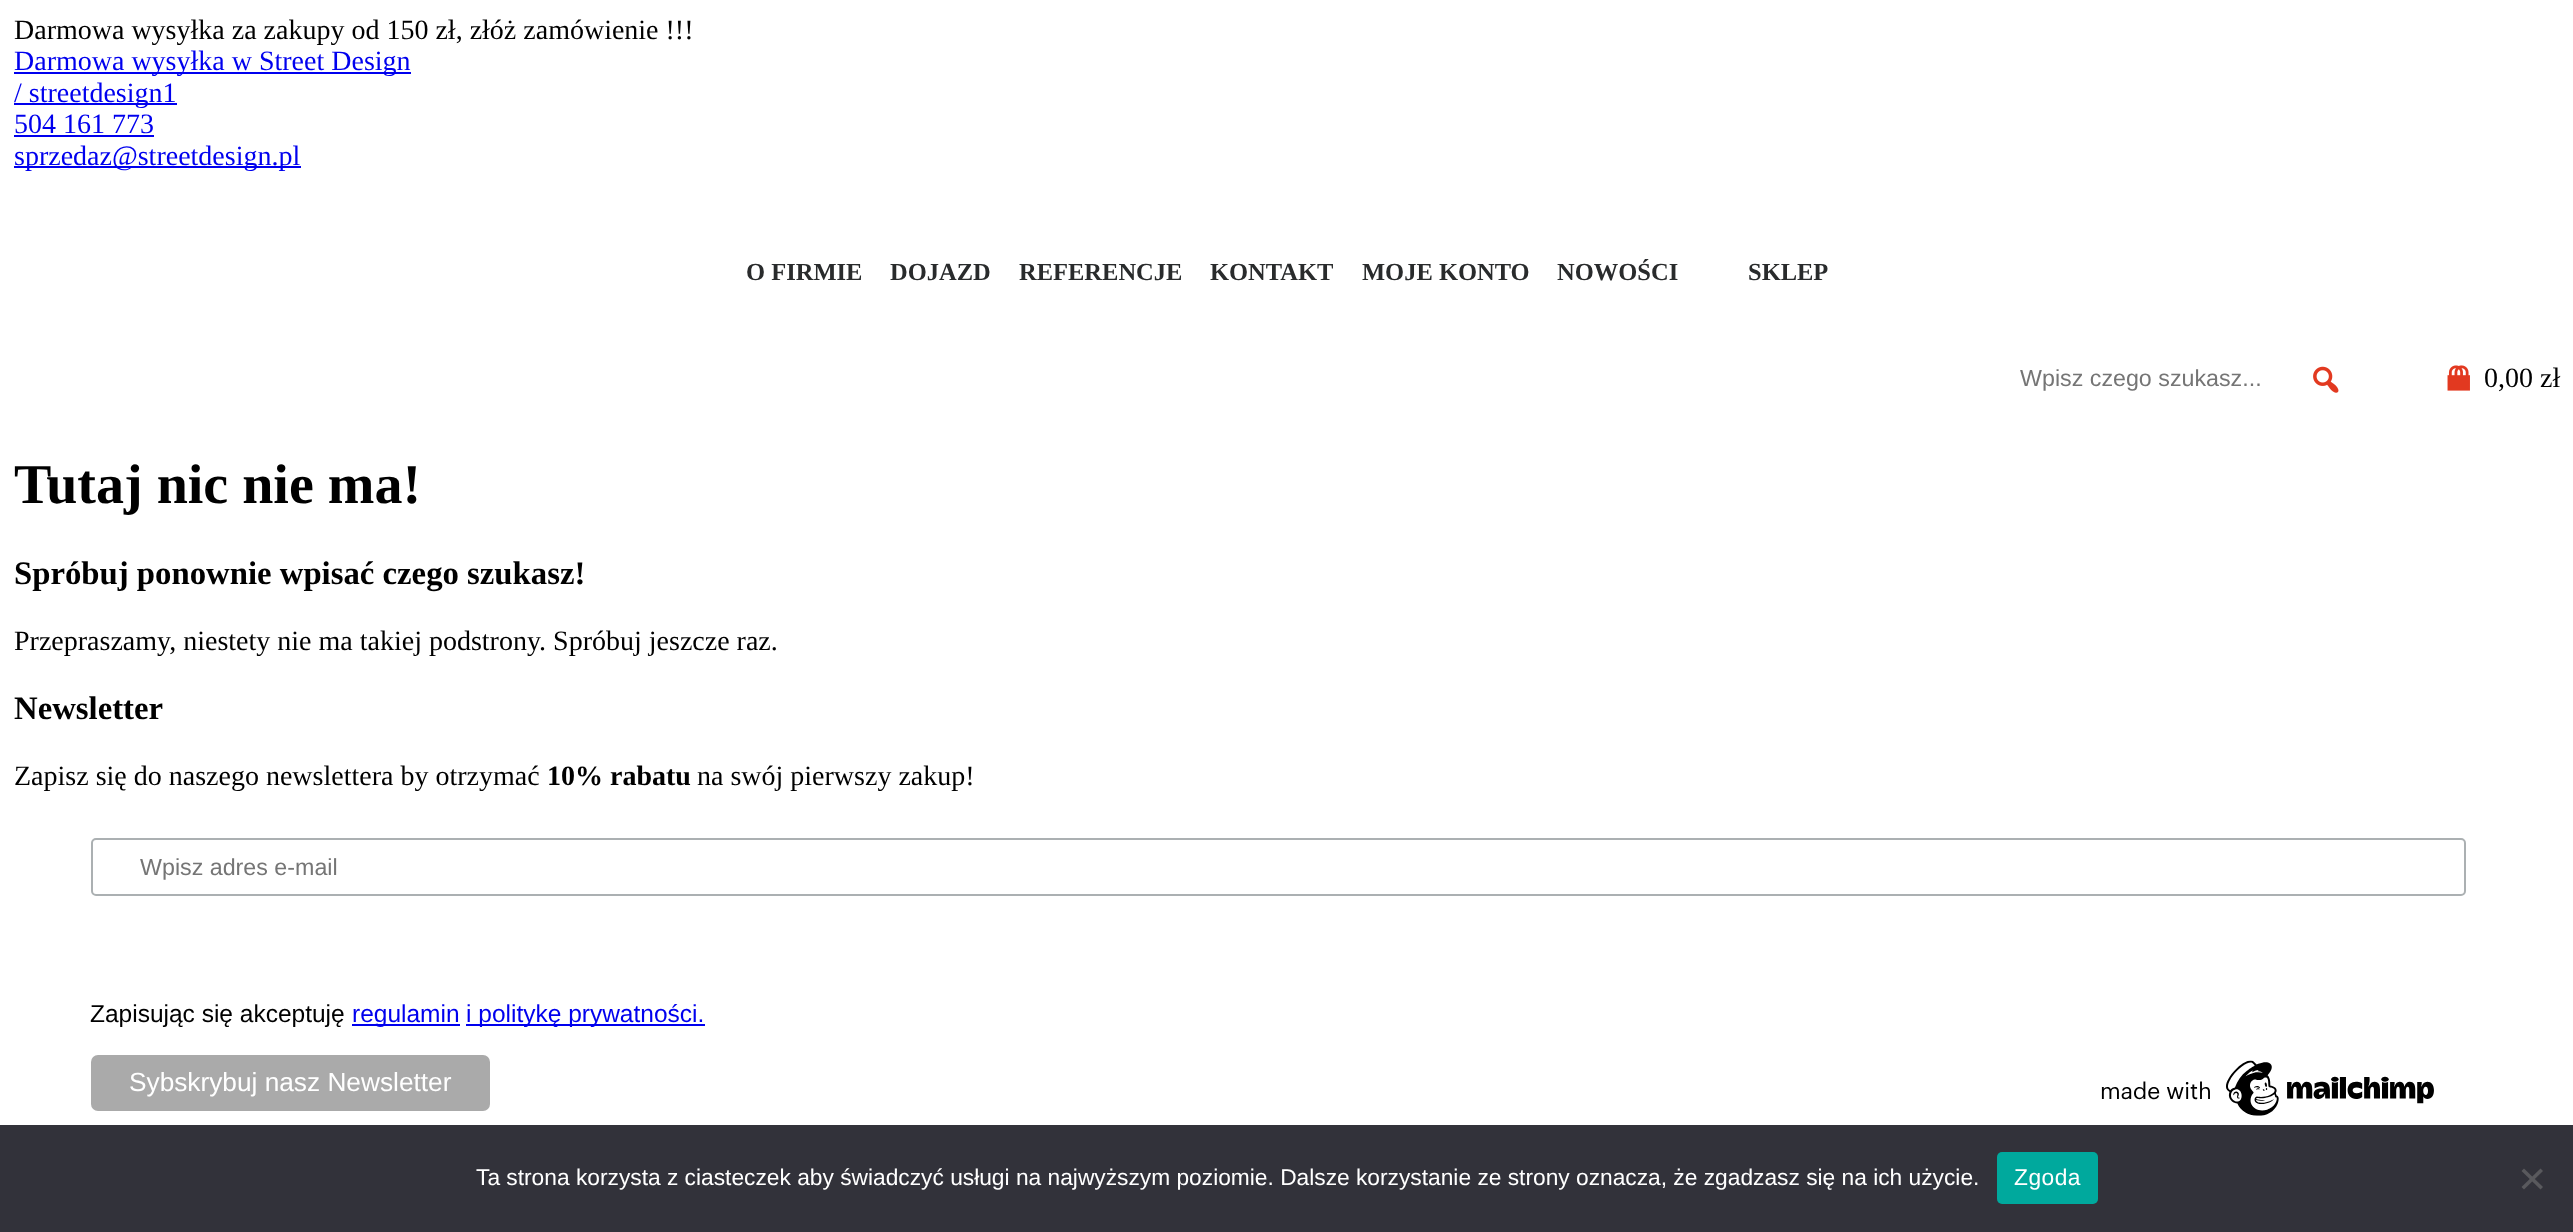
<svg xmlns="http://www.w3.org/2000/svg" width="2573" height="1232">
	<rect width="100%" height="100%" fill="#FFFFFF" />
	<text x="14" y="39" font-family="Liberation Serif" font-size="28" fill="#000000">Darmowa wysyłka za zakupy od 150 zł, złóż zamówienie !!!</text>
	<rect x="14" y="72" width="397" height="2" fill="#0000EE" />
	<text x="14" y="70" font-family="Liberation Serif" font-size="28" fill="#0000EE">Darmowa wysyłka w Street Design</text>
	<rect x="14" y="103" width="163" height="2" fill="#0000EE" />
	<g font-family="Liberation Serif" font-size="28" fill="#0000EE">
		<text x="14" y="102">/ streetdesign1</text>
		<text x="14" y="133">504 161 773</text>
	</g>
	<rect x="14" y="135" width="140" height="2" fill="#0000EE" />
	<rect x="14" y="166" width="287" height="2" fill="#0000EE" />
	<text x="14" y="165" font-family="Liberation Serif" font-size="28" fill="#0000EE">sprzedaz@streetdesign.pl</text>
	<g font-family="Liberation Serif" font-size="24.5" font-weight="700" fill="#292B2C">
		<text x="746" y="280">O FIRMIE</text>
		<text x="890" y="280">DOJAZD</text>
		<text x="1019" y="280">REFERENCJE</text>
		<text x="1210" y="280">KONTAKT</text>
		<text x="1362" y="280">MOJE KONTO</text>
		<text x="1557" y="280">NOWOŚCI</text>
		<text x="1748" y="280">SKLEP</text>
	</g>
	<text x="2020" y="386" font-family="Liberation Sans" font-size="23.25" fill="#757575">Wpisz czego szukasz...</text>
	<image x="2313" y="366" width="26" height="27" href="assets/img1.png" />
	<image x="2447" y="365" width="23" height="26" href="assets/img2.png" />
	<text x="2484" y="387" font-family="Liberation Serif" font-size="28" fill="#000000">0,00 zł</text>
	<text x="14" y="503" font-family="Liberation Serif" font-size="56" font-weight="700" fill="#000000">Tutaj nic nie ma!</text>
	<text x="14" y="584" font-family="Liberation Serif" font-size="32.75" font-weight="700" fill="#000000">Spróbuj ponownie wpisać czego szukasz!</text>
	<text x="14" y="650" font-family="Liberation Serif" font-size="28" fill="#000000">Przepraszamy, niestety nie ma takiej podstrony. Spróbuj jeszcze raz.</text>
	<text x="14" y="719" font-family="Liberation Serif" font-size="32.75" font-weight="700" fill="#000000">Newsletter</text>
	<text x="14" y="785" font-family="Liberation Serif" font-size="28" fill="#000000">Zapisz się do naszego newslettera by otrzymać</text>
	<text x="547" y="785" font-family="Liberation Serif" font-size="28" font-weight="700" fill="#000000">10% rabatu</text>
	<text x="697" y="785" font-family="Liberation Serif" font-size="28" fill="#000000">na swój pierwszy zakup!</text>
	<rect x="92" y="839" width="2373" height="56" rx="4" fill="none" stroke="#ABB0B2" stroke-width="2" />
	<text x="140" y="875" font-family="Liberation Sans" font-size="23.25" fill="#757575">Wpisz adres e-mail</text>
	<text x="90" y="1022" font-family="Liberation Sans" font-size="24.5" fill="#000000">Zapisując się akceptuję</text>
	<rect x="352" y="1024" width="108" height="2" fill="#0000EE" />
	<text x="352" y="1022" font-family="Liberation Sans" font-size="24.5" fill="#0000EE">regulamin</text>
	<rect x="466" y="1024" width="239" height="2" fill="#0000EE" />
	<text x="466" y="1022" font-family="Liberation Sans" font-size="24.5" fill="#0000EE">i politykę prywatności.</text>
	<rect x="91" y="1055" width="399" height="56" rx="7" fill="#AAAAAA" />
	<text x="129" y="1091" font-family="Liberation Sans" font-size="26.25" fill="#FFFFFF">Sybskrybuj nasz Newsletter</text>
	<image x="2101" y="1060" width="333" height="56" href="assets/img3.png" />
	<rect x="0" y="1125" width="2573" height="107" fill="#32323A" />
	<text x="476" y="1185" font-family="Liberation Sans" font-size="22.75" fill="#FFFFFF">Ta strona korzysta z ciasteczek aby świadczyć usługi na najwyższym poziomie. Dalsze korzystanie ze strony oznacza, że zgadzasz się na ich użycie.</text>
	<rect x="1997" y="1152" width="101" height="52" rx="5" fill="#00A99D" />
	<text x="2014" y="1185" font-family="Liberation Sans" font-size="22.75" letter-spacing="0.5" fill="#FFFFFF">Zgoda</text>
	<path d="M2540.5 1168.5L2543 1171L2524 1189.5L2521.5 1187Z" fill="#59595D" />
	<path d="M2521.5 1171L2524 1168.5L2543 1187L2540.5 1189.5Z" fill="#59595D" />
</svg>
